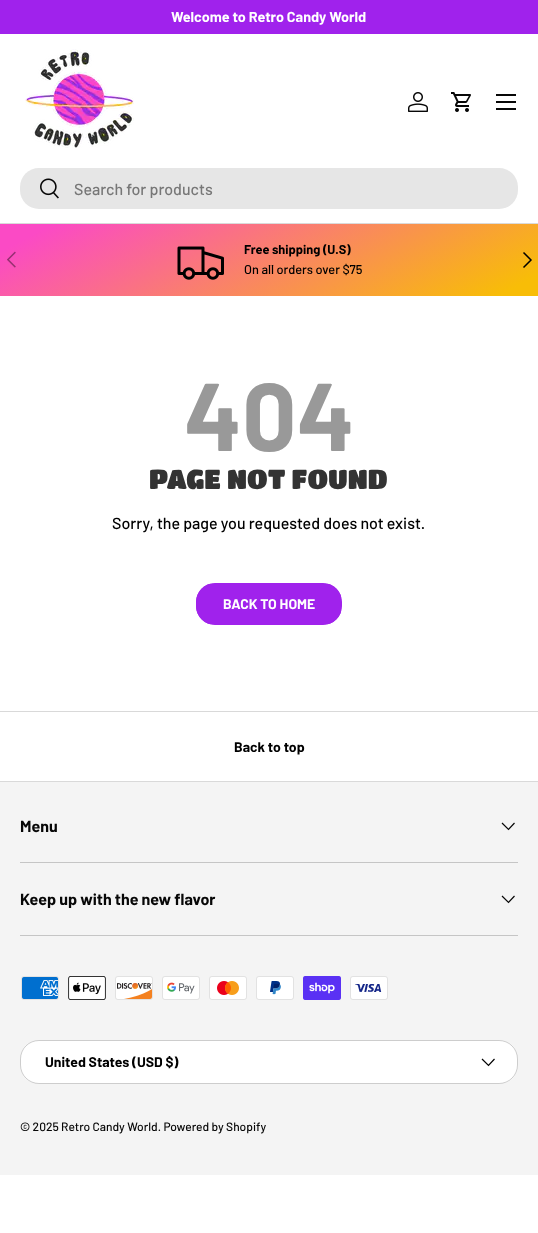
<svg xmlns="http://www.w3.org/2000/svg" width="538" height="1233">
	<defs>
		<linearGradient id="g1" gradientUnits="userSpaceOnUse" x1="195" y1="120" x2="343" y2="400"><stop offset="0.08" stop-color="#FB4AC5" /><stop offset="0.94" stop-color="#F8BD07" /></linearGradient>
		<clipPath id="clip1"><rect x="196" y="583" width="146" height="42" rx="19" /></clipPath>
		<linearGradient id="g2" gradientUnits="userSpaceOnUse" x1="-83" y1="552" x2="333" y2="656"><stop offset="0.6" stop-color="#B451F0" /><stop offset="0.6" stop-color="#A022EC" /><stop offset="1" stop-color="#A022EC" /></linearGradient>
	</defs>
	<rect width="100%" height="100%" fill="#FFFFFF" />
	<rect x="0" y="0" width="538" height="34" fill="#A022EC" />
	<text x="171" y="22" font-family="Barlow" font-size="14.4" font-weight="700" fill="#FFFFFF">Welcome to Retro Candy World</text>
	<rect x="0" y="223" width="538" height="1" fill="#DADADA" />
	<image x="25" y="49" width="109" height="99" href="assets/img1.png" />
	<image x="408" y="92" width="20" height="20" href="assets/img2.png" />
	<image x="451" y="92" width="20" height="20" href="assets/img3.png" />
	<rect x="496" y="94" width="20" height="2" fill="#070707" />
	<rect x="496" y="108" width="20" height="2" fill="#070707" />
	<rect x="496" y="101" width="20" height="2" fill="#070707" />
	<rect x="20" y="168" width="498" height="41" rx="19" fill="#E6E6E6" />
	<image x="40" y="178" width="19" height="21" href="assets/img4.png" />
	<text x="74" y="195" font-family="Barlow" font-size="16" font-weight="500" fill="#777777">Search for products</text>
	<rect x="0" y="224" width="538" height="72" fill="url(#g1)" />
	<image x="177" y="246" width="47" height="34" href="assets/img5.png" />
	<text x="244" y="254" font-family="Barlow" font-size="12.75" font-weight="700" fill="#000000">Free shipping (U.S)</text>
	<text x="244" y="274" font-family="Barlow" font-size="12.75" font-weight="500" fill="#000000">On all orders over $75</text>
	<image x="7" y="251" width="9" height="17" href="assets/img6.png" />
	<path d="M523.5 252.5L531 260L523.5 267.5" fill="none" stroke="#000000" stroke-width="1.5" />
	<text x="184" y="451" font-family="Barlow" font-size="96" font-weight="700" fill="#999999">404</text>
	<text x="149" y="489" font-family="Titan One" font-size="27.25" fill="#333333">PAGE NOT FOUND</text>
	<text x="112" y="529" font-family="Barlow" font-size="16" font-weight="500" fill="#000000">Sorry, the page you requested does not exist.</text>
	<g clip-path="url(#clip1)">
		<rect x="196" y="584" width="145" height="40" fill="url(#g2)" />
	</g>
	<rect x="196.5" y="583.5" width="145" height="41" rx="18.5" fill="none" stroke="#A022EC" />
	<text x="223" y="609" font-family="Barlow" font-size="14" font-weight="700" fill="#FFFFFF">BACK TO HOME</text>
	<rect x="0" y="711" width="538" height="1" fill="#D9D9D9" />
	<rect x="0" y="781" width="538" height="1" fill="#D9D9D9" />
	<text x="234" y="752" font-family="Barlow" font-size="14" font-weight="700" fill="#000000">Back to top</text>
	<rect x="0" y="782" width="538" height="393" fill="#F4F4F4" />
	<rect x="20" y="862" width="498" height="1" fill="#C5C5C5" />
	<text x="20" y="832" font-family="Barlow" font-size="16" font-weight="700" fill="#070707">Menu</text>
	<path d="M514.5 823L508.5 829.5L502 823" fill="none" stroke="#070707" stroke-width="1.2" />
	<rect x="20" y="935" width="498" height="1" fill="#C5C5C5" />
	<text x="20" y="905" font-family="Barlow" font-size="16" font-weight="700" fill="#070707">Keep up with the new flavor</text>
	<path d="M514.5 896L508.5 902.5L502 896" fill="none" stroke="#070707" stroke-width="1.2" />
	<image x="21" y="976" width="38" height="24" href="assets/img7.png" />
	<image x="68" y="976" width="38" height="24" href="assets/img8.png" />
	<image x="115" y="976" width="38" height="24" href="assets/img9.png" />
	<image x="162" y="976" width="38" height="24" href="assets/img10.png" />
	<image x="209" y="976" width="38" height="24" href="assets/img11.png" />
	<image x="256" y="976" width="38" height="24" href="assets/img12.png" />
	<image x="303" y="976" width="38" height="24" href="assets/img13.png" />
	<image x="350" y="976" width="38" height="24" href="assets/img14.png" />
	<rect x="20" y="1040" width="498" height="44" rx="19" fill="#FFFFFF" />
	<rect x="20.5" y="1040.5" width="497" height="43" rx="18.5" fill="none" stroke="#070707" stroke-opacity="0.2" />
	<text x="45" y="1067" font-family="Barlow" font-size="14" font-weight="700" fill="#000000">United States (USD $)</text>
	<path d="M494.5 1059L488.5 1065.5L482 1059" fill="none" stroke="#000000" stroke-width="1.2" />
	<text x="20" y="1131" font-family="Barlow" font-size="12" font-weight="500" fill="#070707">© 2025 Retro Candy World. Powered by Shopify</text>
</svg>
